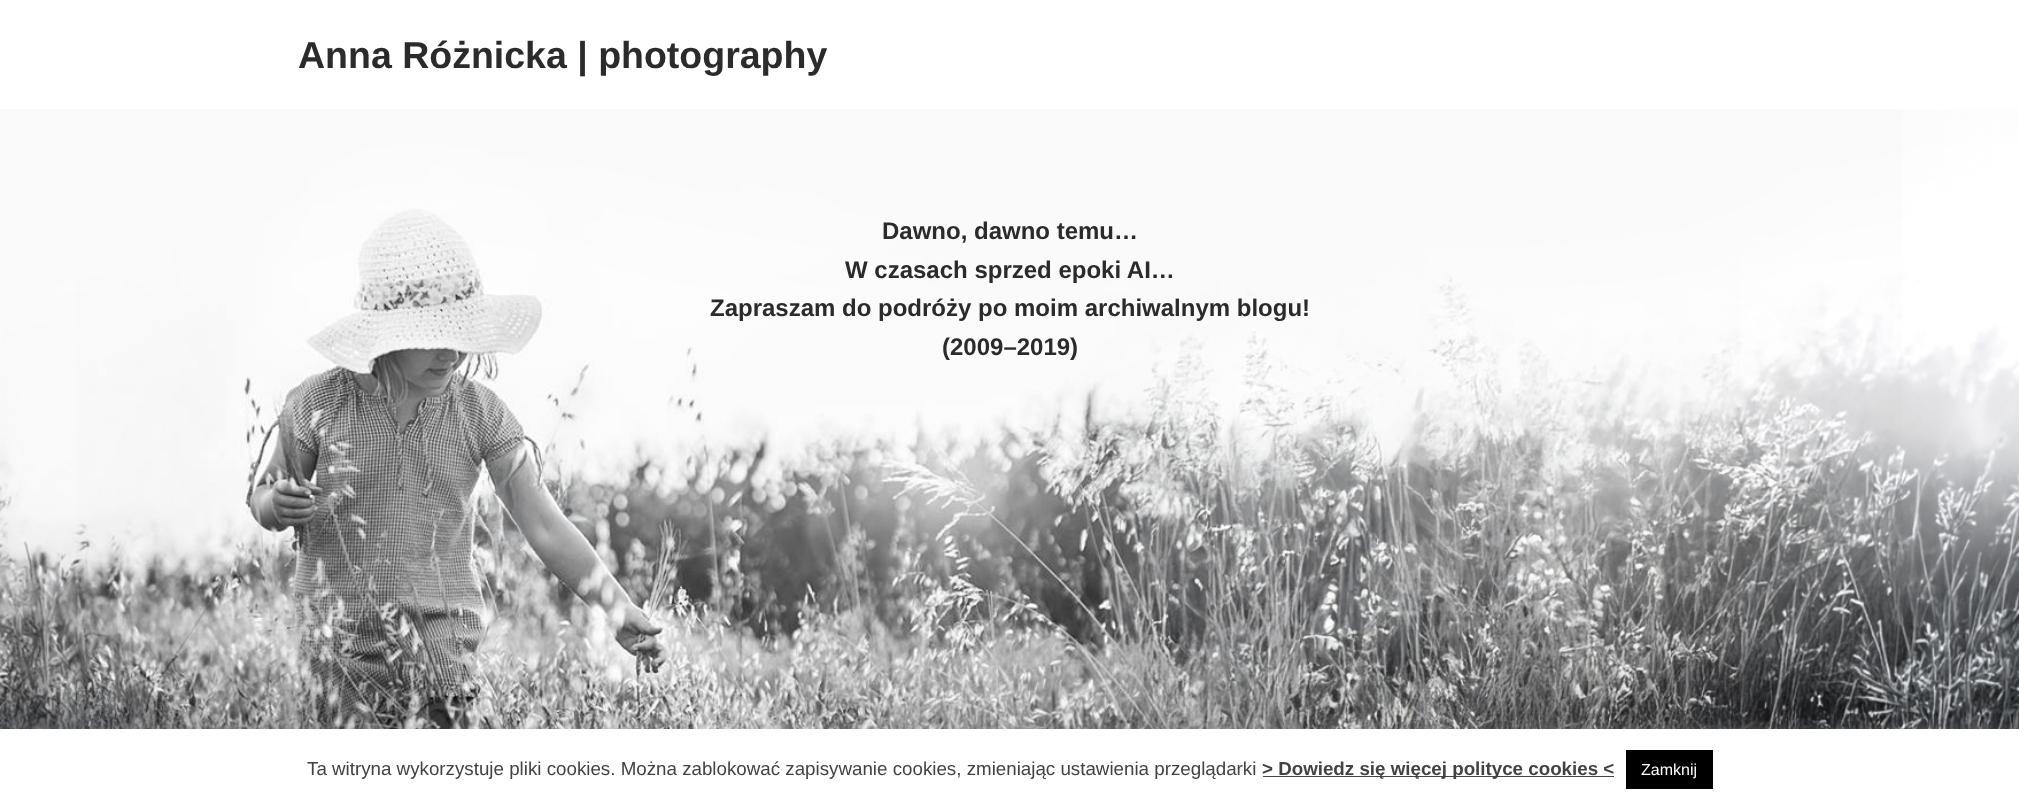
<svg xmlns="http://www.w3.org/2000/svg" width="2019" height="803">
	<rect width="100%" height="100%" fill="#FFFFFF" />
	<text x="298" y="68" font-family="Liberation Sans" font-size="37.5" font-weight="700" fill="#2B2B2B">Anna Różnicka | photography</text>
	<image x="0" y="109" width="2019" height="620" href="assets/img1.png" />
	<g font-family="Liberation Sans" font-size="24" font-weight="700" fill="#2B2B2B">
		<text x="882" y="239">Dawno, dawno temu…</text>
		<text x="845" y="278">W czasach sprzed epoki AI…</text>
		<text x="710" y="316">Zapraszam do podróży po moim archiwalnym blogu!</text>
		<text x="942" y="355">(2009–2019)</text>
	</g>
	<rect x="0" y="728" width="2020" height="75" fill="#ACABAB" fill-opacity="0.3" filter="blur(6px)" />
	<rect x="0" y="729" width="2019" height="74" fill="#FFFFFF" />
	<text x="307" y="775" font-family="Liberation Sans" font-size="18.75" fill="#424242">Ta witryna wykorzystuje pliki cookies. Można zablokować zapisywanie cookies, zmieniając ustawienia przeglądarki</text>
	<rect x="1263" y="776" width="351" height="1" fill="#444444" />
	<text x="1262" y="775" font-family="Liberation Sans" font-size="18.75" font-weight="700" fill="#424242">&gt; Dowiedz się więcej polityce cookies &lt;</text>
	<rect x="1626" y="750" width="87" height="39" fill="#000000" />
	<text x="1641" y="775" font-family="Liberation Sans" font-size="16" fill="#FFFFFF">Zamknij</text>
</svg>
